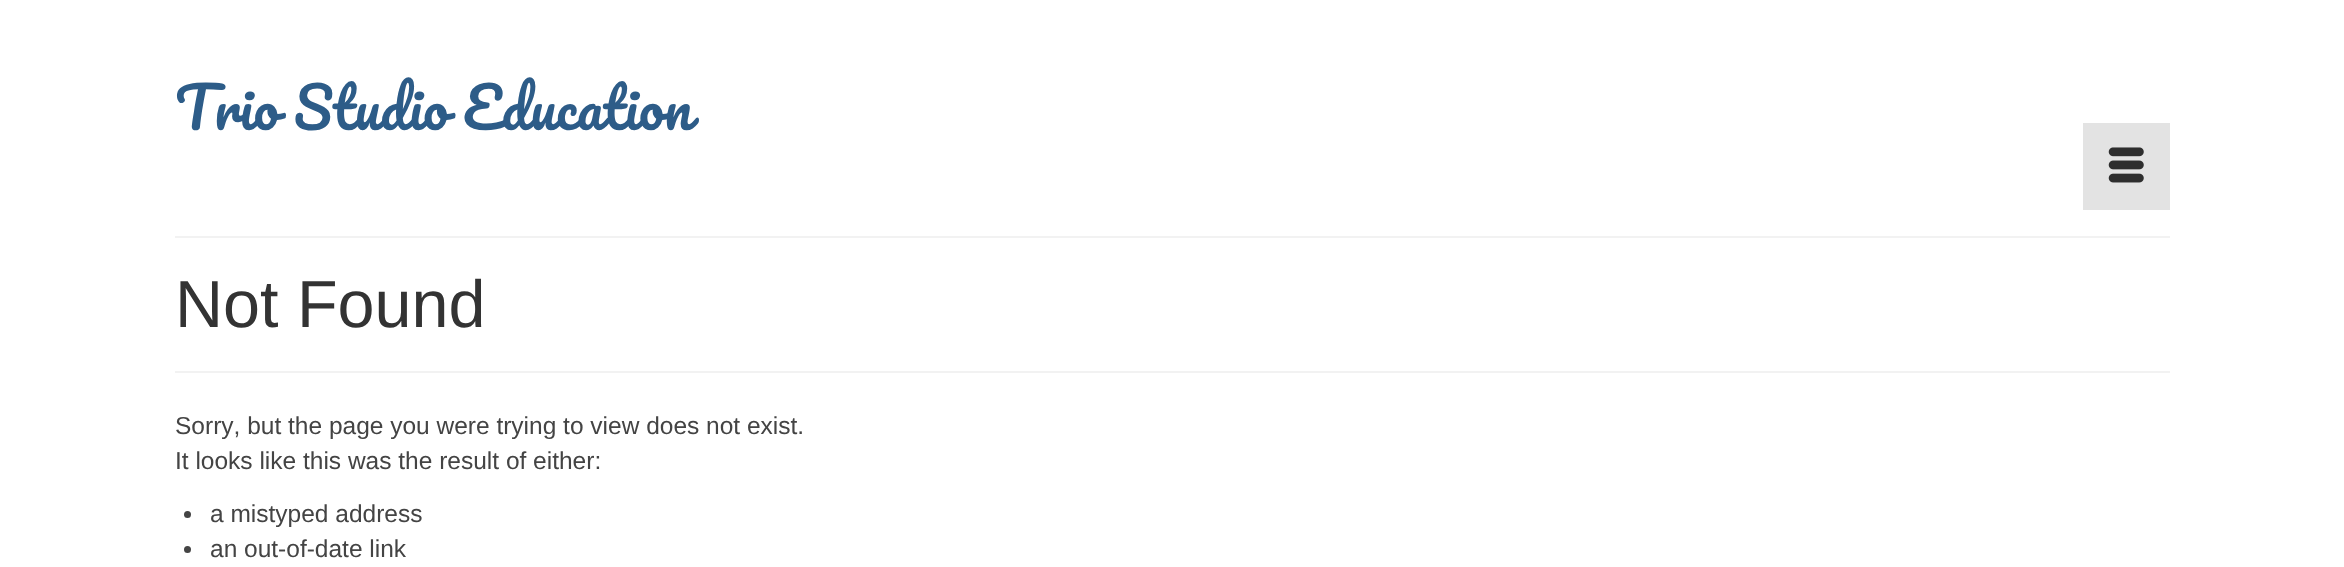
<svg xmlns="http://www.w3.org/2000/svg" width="2344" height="567">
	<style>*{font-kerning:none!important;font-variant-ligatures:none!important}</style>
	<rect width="100%" height="100%" fill="#FFFFFF" />
	<text x="175" y="130" font-family="Pacifico" font-size="56" fill="#2D5C88">Trio Studio Education</text>
	<rect x="2083" y="123" width="87" height="87" fill="#E3E3E3" />
	<image x="2108" y="147" width="36" height="36" href="assets/img1.png" />
	<rect x="175" y="236" width="1995" height="2" fill="#F2F2F2" />
	<rect x="175" y="371" width="1995" height="2" fill="#F2F2F2" />
	<text x="175" y="327" font-family="Liberation Sans" font-size="66.5" fill="#333333">Not Found</text>
	<g font-family="Liberation Sans" font-size="24.5" fill="#444444">
		<text x="175" y="434">Sorry, but the page you were trying to view does not exist.</text>
		<text x="175" y="469">It looks like this was the result of either:</text>
	</g>
	<circle cx="187.5" cy="514.5" r="3.5" fill="#444444" />
	<text x="210" y="522" font-family="Liberation Sans" font-size="24.5" fill="#444444">a mistyped address</text>
	<circle cx="187.5" cy="549.5" r="3.5" fill="#444444" />
	<text x="210" y="557" font-family="Liberation Sans" font-size="24.5" fill="#444444">an out-of-date link</text>
</svg>
